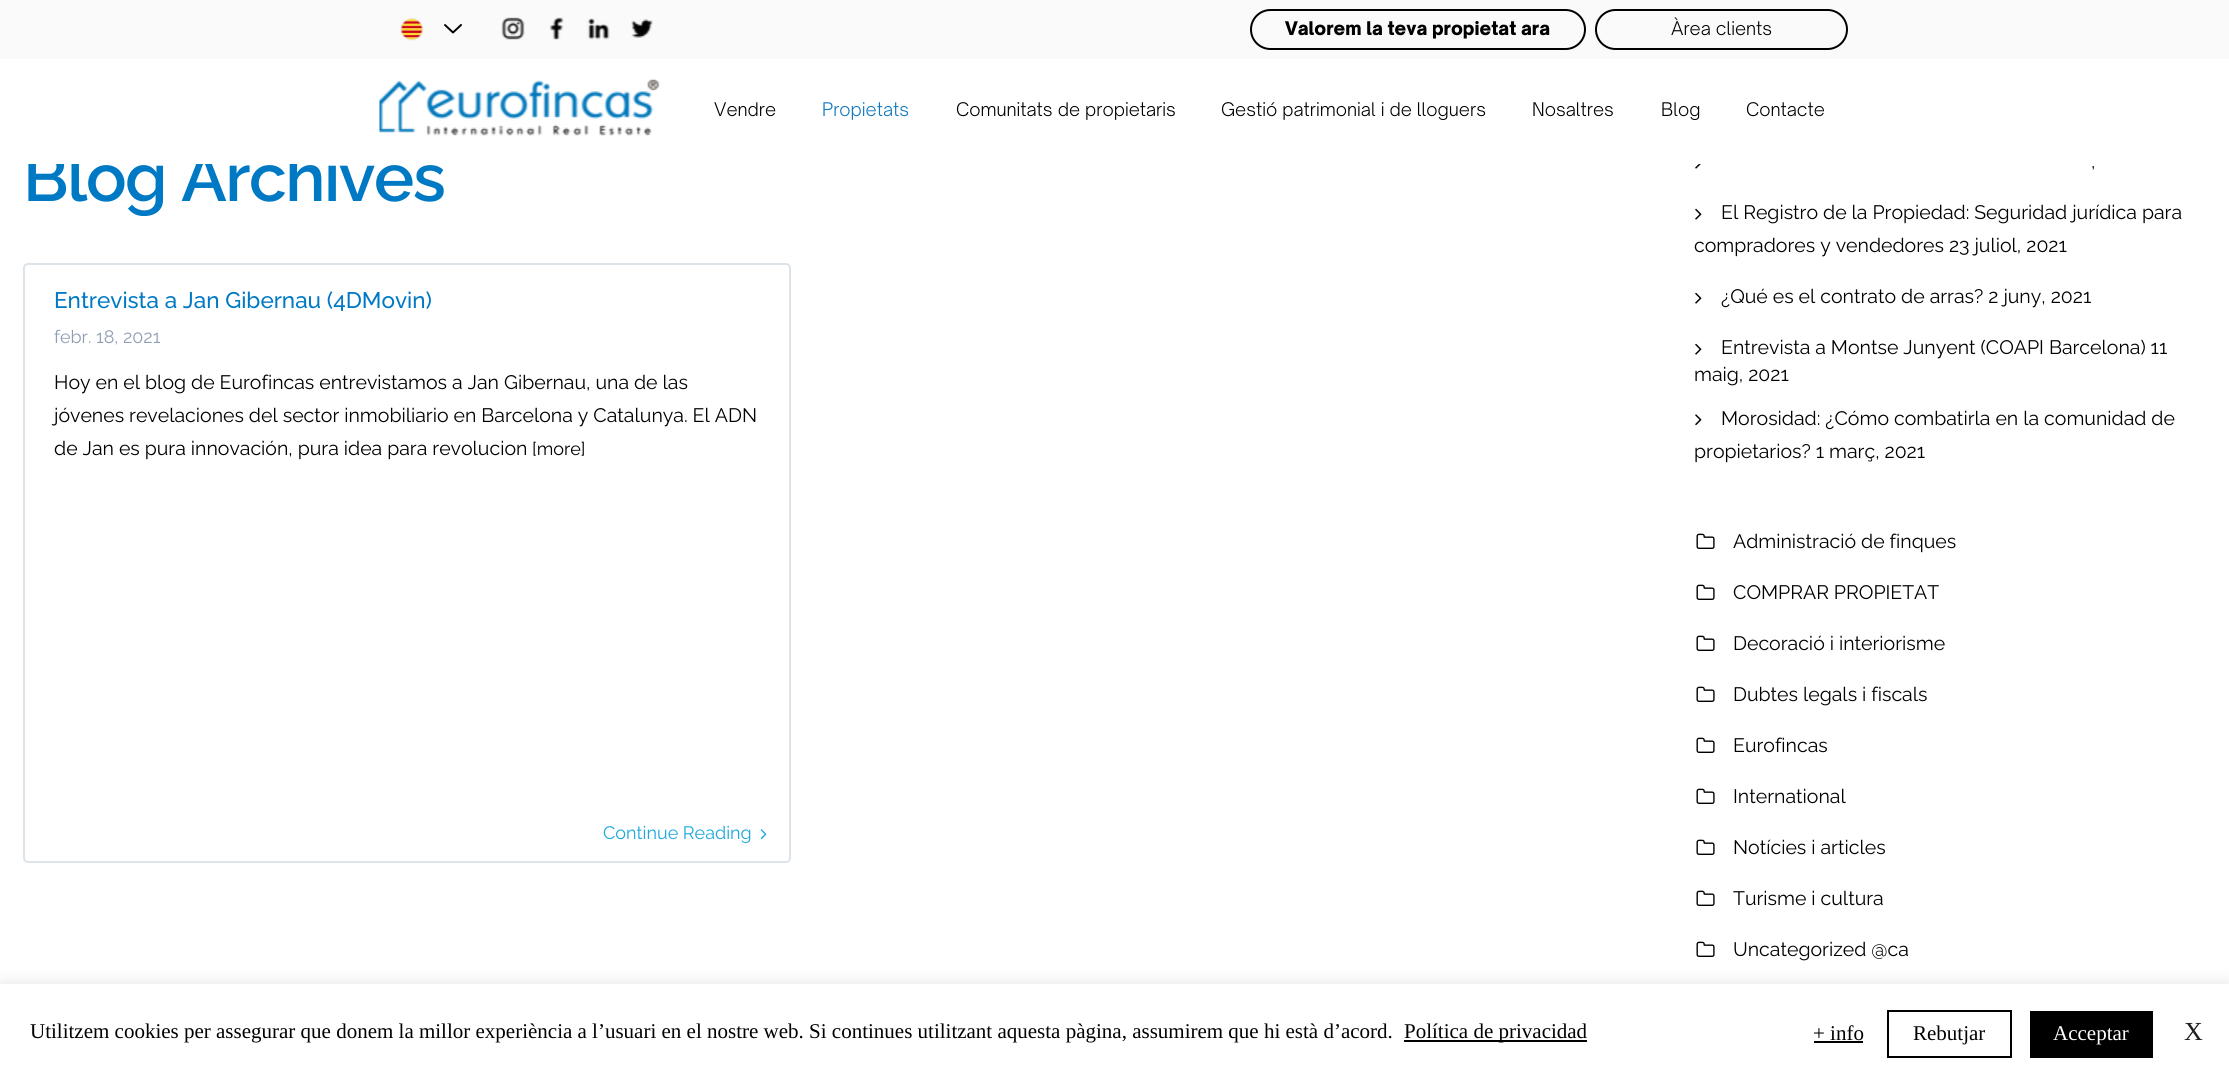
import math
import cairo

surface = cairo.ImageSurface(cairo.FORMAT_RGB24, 2229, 1081)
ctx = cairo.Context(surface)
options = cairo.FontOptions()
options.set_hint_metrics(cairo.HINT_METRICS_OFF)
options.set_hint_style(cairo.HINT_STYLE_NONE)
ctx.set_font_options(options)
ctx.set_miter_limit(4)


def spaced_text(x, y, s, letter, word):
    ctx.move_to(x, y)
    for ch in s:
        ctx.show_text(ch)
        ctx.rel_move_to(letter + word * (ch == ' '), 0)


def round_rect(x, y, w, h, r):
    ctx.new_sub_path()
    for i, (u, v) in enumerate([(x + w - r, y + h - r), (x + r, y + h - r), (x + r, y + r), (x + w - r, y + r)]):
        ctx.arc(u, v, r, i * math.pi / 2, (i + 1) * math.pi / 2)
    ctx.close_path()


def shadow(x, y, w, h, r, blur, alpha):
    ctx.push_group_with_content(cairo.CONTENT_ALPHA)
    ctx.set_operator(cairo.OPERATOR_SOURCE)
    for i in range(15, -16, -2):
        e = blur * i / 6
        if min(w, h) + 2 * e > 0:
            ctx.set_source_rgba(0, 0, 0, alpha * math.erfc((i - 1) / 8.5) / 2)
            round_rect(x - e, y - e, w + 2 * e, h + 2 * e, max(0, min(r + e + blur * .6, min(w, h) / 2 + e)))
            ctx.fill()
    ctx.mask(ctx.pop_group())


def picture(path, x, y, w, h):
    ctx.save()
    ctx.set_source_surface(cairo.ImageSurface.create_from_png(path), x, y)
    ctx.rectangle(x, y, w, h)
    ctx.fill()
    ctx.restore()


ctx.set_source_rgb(1, 1, 1)
ctx.paint()
ctx.set_source_rgb(0.98, 0.98, 0.98)
ctx.rectangle(0, 0, 2229, 59)
ctx.fill()
picture("img1.png", 400, 18, 24, 23)
picture("img2.png", 444, 24, 18, 10)
picture("img3.png", 501, 17, 24, 23)
picture("img4.png", 549, 17, 15, 23)
picture("img5.png", 587, 18, 23, 22)
picture("img6.png", 631, 19, 22, 19)
round_rect(1251, 10, 334, 39, 19.5)
ctx.set_source_rgb(0, 0, 0)
ctx.stroke()
ctx.select_font_face("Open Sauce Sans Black")
ctx.set_font_size(18)
ctx.move_to(1285, 35)
ctx.show_text("Valorem la teva propietat ara")
round_rect(1596, 10, 251, 39, 19.5)
ctx.stroke()
ctx.select_font_face("Open Sauce Sans Light")
ctx.move_to(1671, 35)
ctx.show_text("Àrea clients")
picture("img7.png", 379, 79, 281, 57)
ctx.move_to(714, 116)
ctx.show_text("Vendre")
ctx.set_source_rgb(0.051, 0.471, 0.737)
ctx.move_to(822, 116)
ctx.show_text("Propietats")
ctx.set_source_rgb(0, 0, 0)
ctx.move_to(956, 116)
ctx.show_text("Comunitats de propietaris")
ctx.move_to(1221, 116)
ctx.show_text("Gestió patrimonial i de lloguers")
ctx.move_to(1532, 116)
ctx.show_text("Nosaltres")
ctx.move_to(1661, 116)
ctx.show_text("Blog")
ctx.move_to(1746, 116)
ctx.show_text("Contacte")
ctx.select_font_face("Raleway SemiBold")
ctx.set_font_size(67.5)
ctx.set_source_rgb(0, 0.475, 0.773)
spaced_text(23, 201, "Blog Archives", -1.5, 0)
ctx.set_source_rgb(1, 1, 1)
ctx.rectangle(27, 151, 309, 13)
ctx.fill()
round_rect(24, 264, 766, 598, 4)
ctx.set_source_rgb(0.867, 0.894, 0.914)
ctx.stroke()
ctx.select_font_face("Raleway Medium")
ctx.set_font_size(22.5)
ctx.set_source_rgb(0, 0.475, 0.773)
ctx.move_to(54, 308)
ctx.show_text("Entrevista a Jan Gibernau (4DMovin)")
ctx.select_font_face("Raleway")
ctx.set_font_size(18)
ctx.set_source_rgb(0.561, 0.62, 0.714)
ctx.move_to(54, 343)
ctx.show_text("febr. 18, 2021")
ctx.set_font_size(19.5)
ctx.set_source_rgb(0, 0, 0)
ctx.move_to(54, 389)
ctx.show_text("Hoy en el blog de Eurofincas entrevistamos a Jan Gibernau, una de las")
ctx.move_to(54, 422)
ctx.show_text("jóvenes revelaciones del sector inmobiliario en Barcelona y Catalunya. El ADN")
ctx.move_to(54, 455)
ctx.show_text("de Jan es pura innovación, pura idea para revolucion")
ctx.set_font_size(18)
ctx.move_to(532, 455)
ctx.show_text("[more]")
ctx.set_source_rgb(0.11, 0.659, 0.867)
ctx.move_to(603, 839)
ctx.show_text("Continue Reading")
picture("img8.png", 760, 829, 7, 11)
picture("img9.png", 1695, 164, 6, 5)
ctx.set_font_size(19.5)
ctx.set_source_rgb(0, 0, 0)
ctx.move_to(2091, 168)
ctx.show_text(",")
picture("img10.png", 1695, 208, 7, 12)
ctx.move_to(1721, 219)
ctx.show_text("El Registro de la Propiedad: Seguridad jurídica para")
ctx.move_to(1694, 252)
ctx.show_text("compradores y vendedores 23 juliol, 2021")
picture("img10.png", 1695, 292, 7, 12)
ctx.move_to(1721, 303)
ctx.show_text("¿Qué es el contrato de arras? 2 juny, 2021")
picture("img10.png", 1695, 343, 7, 12)
ctx.move_to(1721, 354)
ctx.show_text("Entrevista a Montse Junyent (COAPI Barcelona) 11")
ctx.move_to(1694, 381)
ctx.show_text("maig, 2021")
picture("img11.png", 1695, 414, 7, 12)
ctx.move_to(1721, 425)
ctx.show_text("Morosidad: ¿Cómo combatirla en la comunidad de")
ctx.move_to(1694, 458)
ctx.show_text("propietarios? 1 març, 2021")
picture("img12.png", 1696, 533, 19, 16)
ctx.move_to(1733, 548)
ctx.show_text("Administració de finques")
picture("img12.png", 1696, 584, 19, 16)
ctx.move_to(1733, 599)
ctx.show_text("COMPRAR PROPIETAT")
picture("img12.png", 1696, 635, 19, 16)
ctx.move_to(1733, 650)
ctx.show_text("Decoració i interiorisme")
picture("img12.png", 1696, 686, 19, 16)
ctx.move_to(1733, 701)
ctx.show_text("Dubtes legals i fiscals")
picture("img12.png", 1696, 737, 19, 16)
ctx.move_to(1733, 752)
ctx.show_text("Eurofincas")
picture("img12.png", 1696, 788, 19, 16)
ctx.move_to(1733, 803)
ctx.show_text("International")
picture("img12.png", 1696, 839, 19, 16)
ctx.move_to(1733, 854)
ctx.show_text("Notícies i articles")
picture("img12.png", 1696, 890, 19, 16)
ctx.move_to(1733, 905)
ctx.show_text("Turisme i cultura")
picture("img12.png", 1696, 941, 19, 16)
ctx.move_to(1733, 956)
ctx.show_text("Uncategorized @ca")
ctx.set_source_rgb(0.675, 0.671, 0.671)
shadow(0, 983, 2229, 97, 0, 7.5, 0.3)
ctx.set_source_rgb(1, 1, 1)
ctx.rectangle(0, 984, 2229, 97)
ctx.fill()
ctx.select_font_face("Liberation Serif")
ctx.set_font_size(21)
ctx.set_source_rgb(0, 0, 0)
ctx.move_to(30, 1038)
ctx.show_text("Utilitzem cookies per assegurar que donem la millor experiència a l’usuari en el nostre web. Si continues utilitzant aquesta pàgina, assumirem que hi està d’acord.")
ctx.rectangle(1404, 1040, 183, 2)
ctx.fill()
ctx.move_to(1404, 1038)
ctx.show_text("Política de privacidad")
ctx.move_to(1813, 1040)
ctx.show_text("+ info")
ctx.rectangle(1814, 1041, 49, 2)
ctx.fill()
ctx.rectangle(1888, 1011, 123, 46)
ctx.stroke()
ctx.move_to(1913, 1040)
ctx.show_text("Rebutjar")
ctx.rectangle(2030, 1011, 123, 47)
ctx.fill()
ctx.set_source_rgb(1, 1, 1)
ctx.move_to(2053, 1040)
ctx.show_text("Acceptar")
ctx.set_font_size(26)
ctx.set_source_rgb(0.125, 0.125, 0.125)
ctx.move_to(2184, 1040)
ctx.show_text("X")
surface.write_to_png("page.png")
